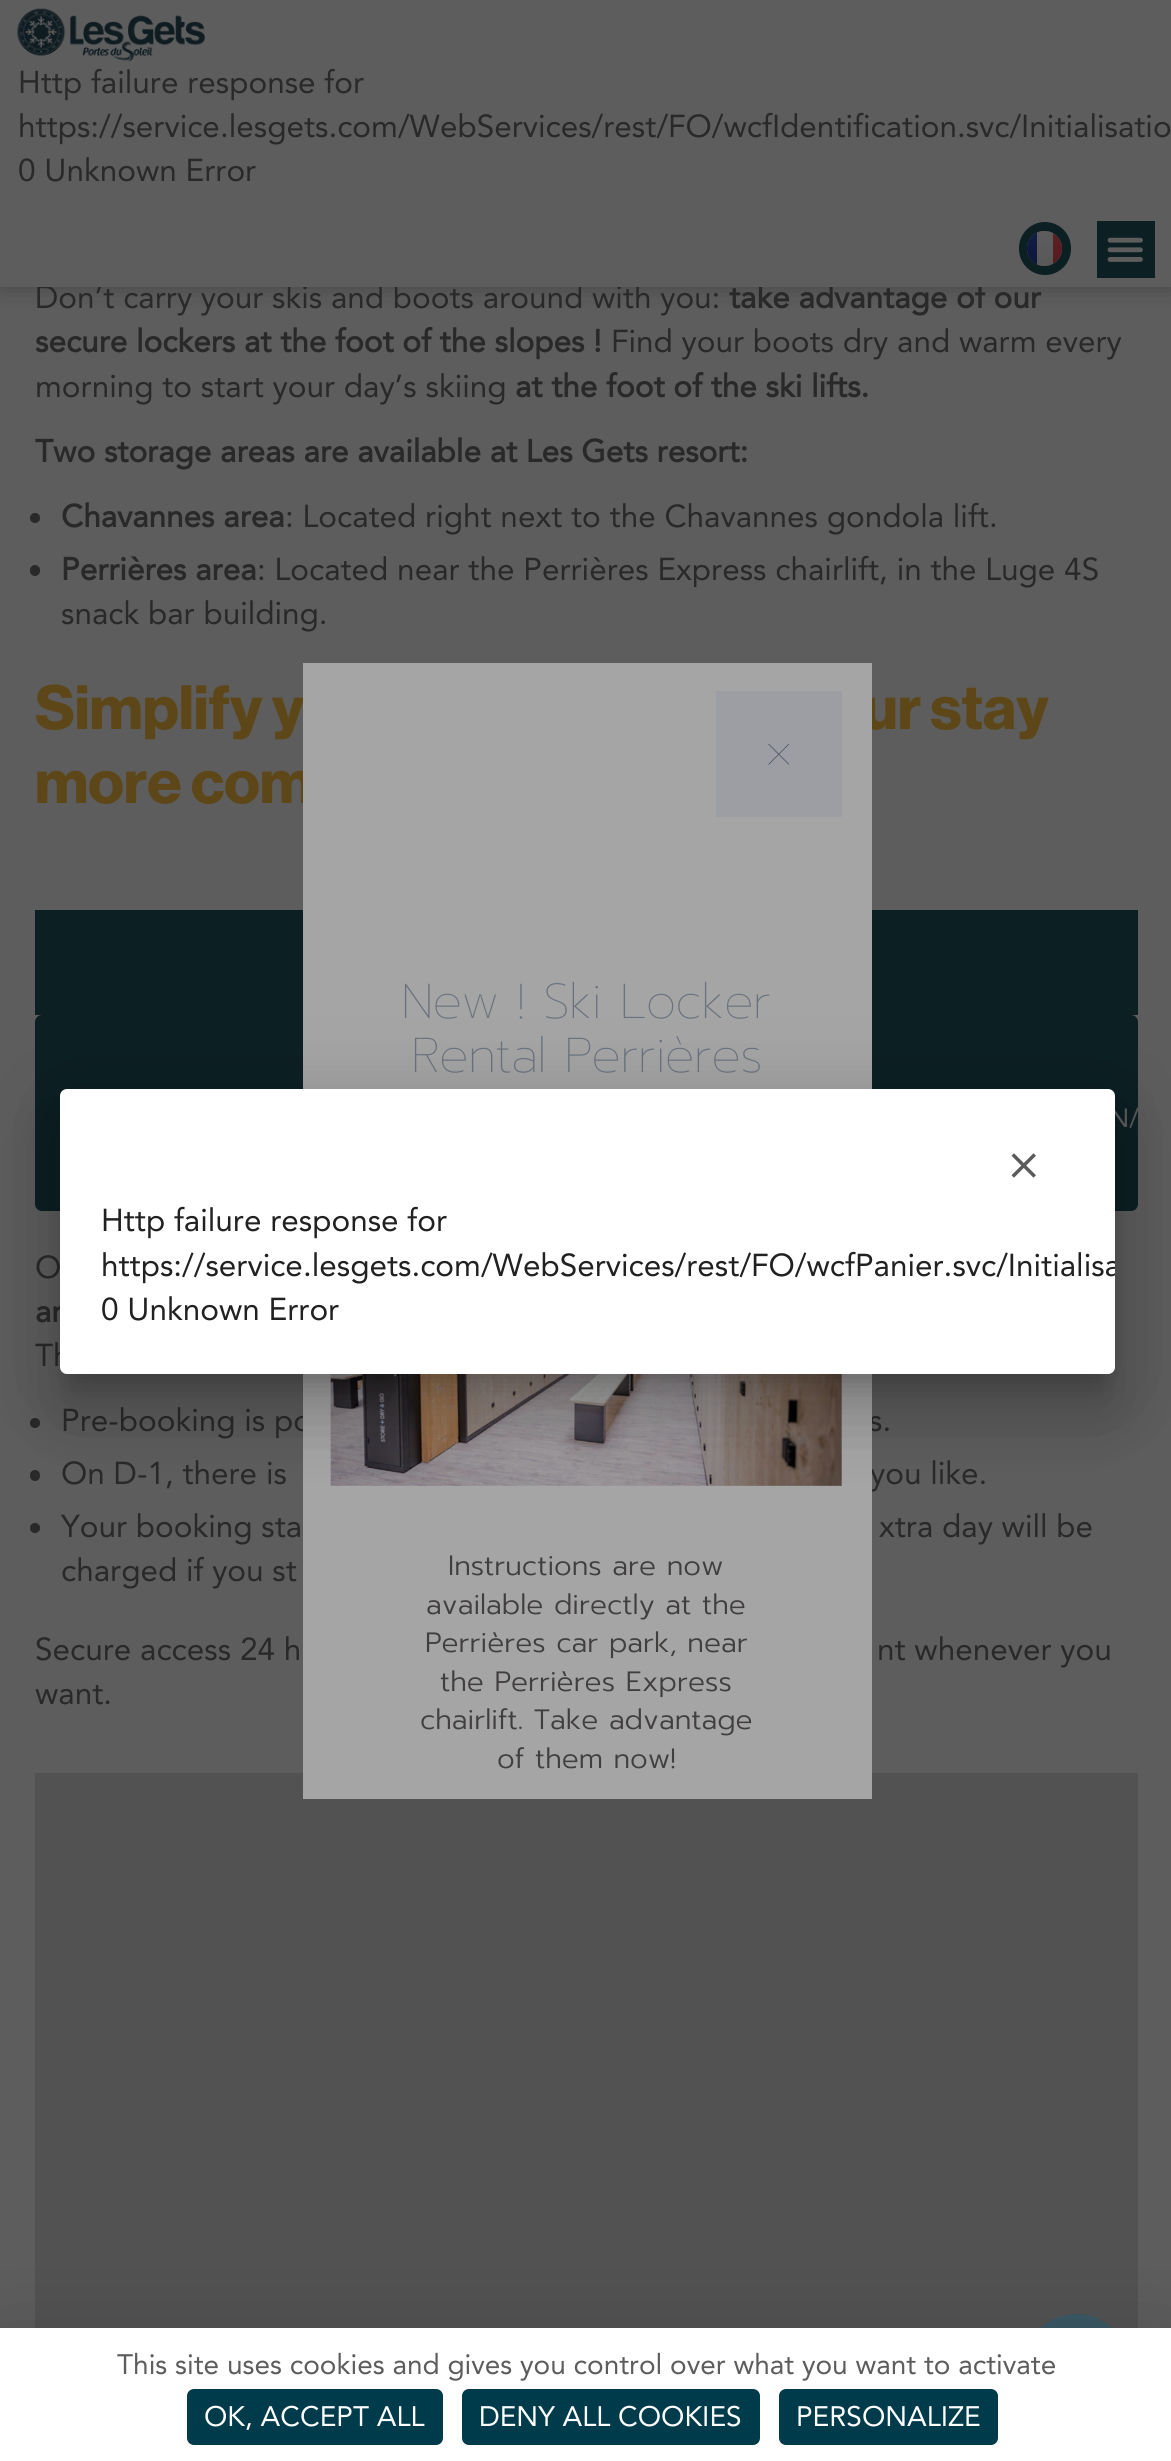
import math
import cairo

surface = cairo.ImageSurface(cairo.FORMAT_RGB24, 1171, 2461)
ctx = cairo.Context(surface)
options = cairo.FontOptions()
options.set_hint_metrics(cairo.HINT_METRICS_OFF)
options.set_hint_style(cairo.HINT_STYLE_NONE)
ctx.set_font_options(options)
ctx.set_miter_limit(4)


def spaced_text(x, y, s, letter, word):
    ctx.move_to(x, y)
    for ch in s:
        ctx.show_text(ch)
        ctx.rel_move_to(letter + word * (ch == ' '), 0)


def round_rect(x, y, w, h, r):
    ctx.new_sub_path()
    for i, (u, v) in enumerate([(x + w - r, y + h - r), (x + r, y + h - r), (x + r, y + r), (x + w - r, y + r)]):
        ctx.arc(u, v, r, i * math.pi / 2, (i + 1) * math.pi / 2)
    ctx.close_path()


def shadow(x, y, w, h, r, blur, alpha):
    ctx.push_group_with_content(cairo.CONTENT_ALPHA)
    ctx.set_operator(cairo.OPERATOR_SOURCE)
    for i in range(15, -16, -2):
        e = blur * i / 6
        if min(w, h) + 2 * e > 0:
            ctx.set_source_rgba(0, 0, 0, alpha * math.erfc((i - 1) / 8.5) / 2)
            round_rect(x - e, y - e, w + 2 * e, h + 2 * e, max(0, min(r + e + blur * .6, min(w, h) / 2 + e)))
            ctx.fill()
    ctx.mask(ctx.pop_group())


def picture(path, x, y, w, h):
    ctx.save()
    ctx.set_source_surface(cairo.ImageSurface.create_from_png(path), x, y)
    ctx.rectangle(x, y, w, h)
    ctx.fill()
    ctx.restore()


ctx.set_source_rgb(0.365, 0.365, 0.365)
ctx.paint()
ctx.set_source_rgb(0.047, 0.047, 0.047)
shadow(0, 0, 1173, 287, 0, 12, 0.3)
ctx.select_font_face("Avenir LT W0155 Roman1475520")
ctx.set_font_size(31.5)
ctx.set_source_rgb(0.161, 0.161, 0.161)
ctx.move_to(35, 308)
ctx.show_text("Don’t carry your skis and boots around with you:")
ctx.select_font_face("Avenir LT W0155 Roman1475520", cairo.FONT_SLANT_NORMAL, cairo.FONT_WEIGHT_BOLD)
ctx.move_to(729, 308)
ctx.show_text("take advantage of our")
ctx.set_source_rgb(0.365, 0.365, 0.365)
ctx.rectangle(0, 0, 1171, 287)
ctx.fill()
picture("img1.png", 17, 8, 188, 54)
ctx.select_font_face("Avenir LT W0155 Roman1475520")
ctx.set_source_rgb(0.161, 0.161, 0.161)
ctx.move_to(18, 93)
ctx.show_text("Http failure response for")
ctx.move_to(18, 137)
ctx.show_text("https://service.lesgets.com/WebServices/rest/FO/wcfIdentification.svc/Initialisatio")
ctx.move_to(18, 181)
ctx.show_text("0 Unknown Error")
ctx.set_source_rgb(0.047, 0.122, 0.137)
round_rect(1019, 222, 52, 53, 26)
ctx.fill()
gradient = cairo.LinearGradient(1045, 231, 1045, 266)
gradient.add_color_stop_rgba(0, 0.365, 0.365, 0.365, 1)
gradient.add_color_stop_rgba(1, 0.345, 0.345, 0.345, 1)
ctx.set_source(gradient)
ctx.arc(1044.5, 248.5, 17.5, 0, 2 * math.pi)
ctx.fill()
ctx.save()
round_rect(1027, 231, 35, 35, 17.5)
ctx.clip()
gradient = cairo.LinearGradient(1056, 231, 1056, 266)
gradient.add_color_stop_rgba(0, 0.353, 0.133, 0.149, 1)
gradient.add_color_stop_rgba(1, 0.345, 0.098, 0.118, 1)
ctx.set_source(gradient)
ctx.new_path()
ctx.move_to(1044, 231)
ctx.line_to(1044.5, 231)
ctx.curve_to(1054, 231, 1062, 239, 1062, 248.5)
ctx.curve_to(1062, 258, 1054, 266, 1044.5, 266)
ctx.line_to(1044, 266)
ctx.close_path()
ctx.fill()
gradient = cairo.LinearGradient(1028, 231, 1028, 266)
gradient.add_color_stop_rgba(0, 0.063, 0.114, 0.278, 1)
gradient.add_color_stop_rgba(1, 0.051, 0.086, 0.231, 1)
ctx.set_source(gradient)
ctx.rectangle(1027, 232, 10, 33)
ctx.fill()
gradient = cairo.LinearGradient(1045, 231, 1045, 266)
gradient.add_color_stop_rgba(0, 0.365, 0.365, 0.365, 1)
gradient.add_color_stop_rgba(1, 0.345, 0.345, 0.345, 1)
ctx.set_source(gradient)
ctx.rectangle(1037, 231, 16, 35)
ctx.fill()
ctx.restore()
ctx.set_source_rgb(0.047, 0.122, 0.137)
ctx.rectangle(1097, 221, 58, 57)
ctx.fill()
picture("img2.png", 1107, 237, 36, 25)
ctx.select_font_face("Avenir LT W0155 Roman1475520", cairo.FONT_SLANT_NORMAL, cairo.FONT_WEIGHT_BOLD)
ctx.set_source_rgb(0.161, 0.161, 0.161)
ctx.move_to(35, 352)
ctx.show_text("secure lockers at the foot of the slopes !")
ctx.select_font_face("Avenir LT W0155 Roman1475520")
ctx.move_to(611, 352)
ctx.show_text("Find your boots dry and warm every")
ctx.move_to(35, 397)
ctx.show_text("morning to start your day’s skiing")
ctx.select_font_face("Avenir LT W0155 Roman1475520", cairo.FONT_SLANT_NORMAL, cairo.FONT_WEIGHT_BOLD)
ctx.move_to(515, 397)
ctx.show_text("at the foot of the ski lifts.")
ctx.move_to(35, 462)
ctx.show_text("Two storage areas are available at Les Gets resort:")
ctx.new_path()
ctx.arc(35, 518, 5, 0, 2 * math.pi)
ctx.fill()
ctx.move_to(61, 527)
ctx.show_text("Chavannes area")
ctx.select_font_face("Avenir LT W0155 Roman1475520")
ctx.move_to(285, 527)
ctx.show_text(": Located right next to the Chavannes gondola lift.")
round_rect(30, 565, 10, 11, 5)
ctx.fill()
ctx.select_font_face("Avenir LT W0155 Roman1475520", cairo.FONT_SLANT_NORMAL, cairo.FONT_WEIGHT_BOLD)
ctx.move_to(61, 580)
ctx.show_text("Perrières area")
ctx.select_font_face("Avenir LT W0155 Roman1475520")
ctx.move_to(257, 580)
ctx.show_text(": Located near the Perrières Express chairlift, in the Luge 4S")
ctx.move_to(61, 624)
ctx.show_text("snack bar building.")
ctx.select_font_face("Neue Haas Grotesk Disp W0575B", cairo.FONT_SLANT_NORMAL, cairo.FONT_WEIGHT_BOLD)
ctx.set_font_size(61.25)
ctx.set_source_rgb(0.365, 0.278, 0.094)
ctx.move_to(35, 729)
ctx.show_text("Simplify y")
ctx.move_to(863, 729)
ctx.show_text("ur stay")
ctx.move_to(35, 803)
ctx.show_text("more com")
ctx.set_source_rgb(0.047, 0.122, 0.137)
ctx.rectangle(35, 910, 1103, 105)
ctx.fill()
round_rect(35, 1015, 1103, 196, 7)
ctx.fill()
ctx.select_font_face("Avenir LT W0155 Roman1475520")
ctx.set_font_size(26)
ctx.set_source_rgb(0.365, 0.365, 0.365)
ctx.move_to(1109, 1127)
ctx.show_text("N/")
ctx.set_font_size(31.5)
ctx.set_source_rgb(0.161, 0.161, 0.161)
ctx.move_to(35, 1278)
ctx.show_text("O")
ctx.select_font_face("Avenir LT W0155 Roman1475520", cairo.FONT_SLANT_NORMAL, cairo.FONT_WEIGHT_BOLD)
ctx.move_to(35, 1322)
ctx.show_text("ar")
ctx.select_font_face("Avenir LT W0155 Roman1475520")
ctx.move_to(35, 1366)
ctx.show_text("Th")
ctx.new_path()
ctx.arc(35, 1423, 5, 0, 2 * math.pi)
ctx.fill()
ctx.move_to(61, 1431)
ctx.show_text("Pre-booking is po")
ctx.move_to(869, 1431)
ctx.show_text("s.")
round_rect(30, 1470, 10, 11, 5)
ctx.fill()
ctx.move_to(61, 1484)
ctx.show_text("On D-1, there is")
ctx.move_to(870, 1484)
ctx.show_text("you like.")
ctx.new_path()
ctx.arc(35, 1528, 5, 0, 2 * math.pi)
ctx.fill()
ctx.move_to(61, 1537)
ctx.show_text("Your booking sta")
ctx.move_to(879, 1537)
ctx.show_text("xtra day will be")
ctx.move_to(61, 1581)
ctx.show_text("charged if you st")
ctx.move_to(35, 1660)
ctx.show_text("Secure access 24 h")
ctx.move_to(877, 1660)
ctx.show_text("nt whenever you")
ctx.move_to(35, 1704)
ctx.show_text("want.")
ctx.set_source_rgb(0.322, 0.322, 0.322)
ctx.rectangle(35, 1773, 1103, 555)
ctx.fill()
ctx.set_source_rgb(0.647, 0.647, 0.647)
ctx.rectangle(303, 663, 569, 1136)
ctx.fill()
ctx.set_source_rgb(0.612, 0.62, 0.639)
ctx.rectangle(716, 691, 126, 126)
ctx.fill()
picture("img3.png", 768, 744, 21, 21)
ctx.select_font_face("Prompt Thin")
ctx.set_font_size(49)
ctx.set_source_rgb(0.412, 0.447, 0.494)
spaced_text(401, 1018, "New ! Ski Locker", -0.9, 0)
spaced_text(411, 1072, "Rental Perrières", -0.9, 0)
picture("img4.png", 330, 1374, 512, 112)
ctx.select_font_face("Prompt Light")
ctx.set_font_size(28)
ctx.set_source_rgb(0.255, 0.243, 0.243)
ctx.move_to(448, 1575)
ctx.show_text("Instructions are now")
ctx.move_to(426, 1614)
ctx.show_text("available directly at the")
ctx.move_to(425, 1652)
ctx.show_text("Perrières car park, near")
ctx.move_to(440, 1691)
ctx.show_text("the Perrières Express")
ctx.move_to(420, 1729)
ctx.show_text("chairlift. Take advantage")
ctx.move_to(497, 1768)
ctx.show_text("of them now!")
ctx.set_source_rgb(0, 0, 0)
shadow(46, 1090, 1083, 314, 21, 40, 0.12)
shadow(54, 1125, 1066, 296, 12, 33, 0.14)
shadow(72, 1120, 1031, 261, 0, 13, 0.2)
ctx.set_source_rgb(1, 1, 1)
round_rect(60, 1089, 1055, 285, 7)
ctx.fill()
picture("img5.png", 1011, 1153, 25, 25)
ctx.select_font_face("Avenir LT W0155 Roman1475520")
ctx.set_font_size(31.5)
ctx.set_source_rgb(0.129, 0.129, 0.129)
ctx.move_to(101, 1231)
ctx.show_text("Http failure response for")
ctx.save()
ctx.rectangle(60, 1131, 1055, 201)
ctx.clip()
ctx.move_to(101, 1276)
ctx.show_text("https://service.lesgets.com/WebServices/rest/FO/wcfPanier.svc/Initialisa")
ctx.restore()
ctx.move_to(101, 1320)
ctx.show_text("0 Unknown Error")
ctx.set_source_rgb(0.227, 0.345, 0.396)
ctx.new_path()
ctx.arc(1076.5, 2366.5, 52.5, 0, 2 * math.pi)
ctx.fill()
ctx.set_source_rgb(0, 0, 0)
shadow(0, 2363, 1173, 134, 0, 52.5, 0.25)
ctx.set_source_rgb(1, 1, 1)
ctx.rectangle(0, 2328, 1171, 133)
ctx.fill()
ctx.set_font_size(28)
ctx.set_source_rgb(0.365, 0.365, 0.365)
ctx.move_to(117, 2374)
ctx.show_text("This site uses cookies and gives you control over what you want to activate")
ctx.set_source_rgb(0, 0.231, 0.294)
round_rect(187, 2389, 256, 56, 7)
ctx.fill()
ctx.set_source_rgb(1, 1, 1)
ctx.move_to(204, 2426)
ctx.show_text("OK, ACCEPT ALL")
ctx.set_source_rgb(0, 0.231, 0.294)
round_rect(462, 2389, 298, 56, 7)
ctx.fill()
ctx.set_source_rgb(1, 1, 1)
ctx.move_to(479, 2426)
ctx.show_text("DENY ALL COOKIES")
ctx.set_source_rgb(0, 0.231, 0.294)
round_rect(779, 2389, 219, 56, 7)
ctx.fill()
ctx.set_source_rgb(1, 1, 1)
ctx.move_to(796, 2426)
ctx.show_text("PERSONALIZE")
surface.write_to_png("page.png")
